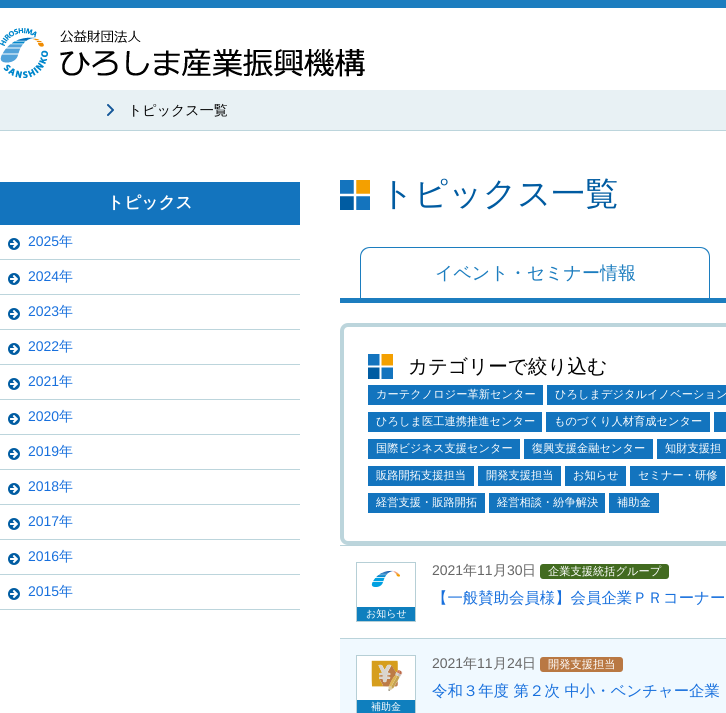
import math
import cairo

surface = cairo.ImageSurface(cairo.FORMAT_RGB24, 726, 713)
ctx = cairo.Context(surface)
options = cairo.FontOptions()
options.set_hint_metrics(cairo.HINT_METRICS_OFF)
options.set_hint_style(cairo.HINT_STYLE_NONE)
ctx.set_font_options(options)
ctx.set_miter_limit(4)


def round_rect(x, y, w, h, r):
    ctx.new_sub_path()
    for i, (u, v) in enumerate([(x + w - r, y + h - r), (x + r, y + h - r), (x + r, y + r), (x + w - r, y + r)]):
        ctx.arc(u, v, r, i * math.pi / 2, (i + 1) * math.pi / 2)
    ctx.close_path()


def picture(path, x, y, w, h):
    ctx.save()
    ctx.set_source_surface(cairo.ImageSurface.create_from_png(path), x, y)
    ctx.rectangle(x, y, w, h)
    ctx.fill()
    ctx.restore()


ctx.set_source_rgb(1, 1, 1)
ctx.paint()
ctx.set_source_rgb(0.11, 0.49, 0.749)
ctx.rectangle(0, 0, 726, 8)
ctx.fill()
picture("img1.png", 0, 28, 365, 50)
ctx.set_source_rgb(0.91, 0.945, 0.957)
ctx.rectangle(0, 90, 726, 40)
ctx.fill()
ctx.set_source_rgb(0.737, 0.835, 0.863)
ctx.rectangle(0, 130, 726, 1)
ctx.fill()
picture("img2.png", 107, 104, 7, 12)
ctx.select_font_face("WenQuanYi Zen Hei Medium")
ctx.set_font_size(14)
ctx.set_source_rgb(0, 0, 0)
ctx.move_to(128, 115)
ctx.show_text("トピックス一覧")
ctx.set_source_rgb(0.078, 0.455, 0.745)
ctx.rectangle(0, 182, 300, 43)
ctx.fill()
ctx.select_font_face("WenQuanYi Zen Hei", cairo.FONT_SLANT_NORMAL, cairo.FONT_WEIGHT_BOLD)
ctx.set_font_size(16.75)
ctx.set_source_rgb(1, 1, 1)
ctx.move_to(107, 208)
ctx.show_text("トピックス")
ctx.set_source_rgb(0.737, 0.835, 0.863)
ctx.rectangle(0, 259, 300, 1)
ctx.fill()
picture("img3.png", 8, 238, 12, 12)
ctx.select_font_face("Liberation Sans")
ctx.set_font_size(14)
ctx.set_source_rgb(0.094, 0.439, 0.867)
ctx.move_to(28, 246)
ctx.show_text("2025")
ctx.select_font_face("WenQuanYi Zen Hei Medium")
ctx.move_to(59, 246)
ctx.show_text("年")
ctx.set_source_rgb(0.737, 0.835, 0.863)
ctx.rectangle(0, 294, 300, 1)
ctx.fill()
picture("img3.png", 8, 273, 12, 12)
ctx.select_font_face("Liberation Sans")
ctx.set_source_rgb(0.094, 0.439, 0.867)
ctx.move_to(28, 281)
ctx.show_text("2024")
ctx.select_font_face("WenQuanYi Zen Hei Medium")
ctx.move_to(59, 281)
ctx.show_text("年")
ctx.set_source_rgb(0.737, 0.835, 0.863)
ctx.rectangle(0, 329, 300, 1)
ctx.fill()
picture("img3.png", 8, 308, 12, 12)
ctx.select_font_face("Liberation Sans")
ctx.set_source_rgb(0.094, 0.439, 0.867)
ctx.move_to(28, 316)
ctx.show_text("2023")
ctx.select_font_face("WenQuanYi Zen Hei Medium")
ctx.move_to(59, 316)
ctx.show_text("年")
ctx.set_source_rgb(0.737, 0.835, 0.863)
ctx.rectangle(0, 364, 300, 1)
ctx.fill()
picture("img3.png", 8, 343, 12, 12)
ctx.select_font_face("Liberation Sans")
ctx.set_source_rgb(0.094, 0.439, 0.867)
ctx.move_to(28, 351)
ctx.show_text("2022")
ctx.select_font_face("WenQuanYi Zen Hei Medium")
ctx.move_to(59, 351)
ctx.show_text("年")
ctx.set_source_rgb(0.737, 0.835, 0.863)
ctx.rectangle(0, 399, 300, 1)
ctx.fill()
picture("img3.png", 8, 378, 12, 12)
ctx.select_font_face("Liberation Sans")
ctx.set_source_rgb(0.094, 0.439, 0.867)
ctx.move_to(28, 386)
ctx.show_text("2021")
ctx.select_font_face("WenQuanYi Zen Hei Medium")
ctx.move_to(59, 386)
ctx.show_text("年")
ctx.set_source_rgb(0.737, 0.835, 0.863)
ctx.rectangle(0, 434, 300, 1)
ctx.fill()
picture("img3.png", 8, 413, 12, 12)
ctx.select_font_face("Liberation Sans")
ctx.set_source_rgb(0.094, 0.439, 0.867)
ctx.move_to(28, 421)
ctx.show_text("2020")
ctx.select_font_face("WenQuanYi Zen Hei Medium")
ctx.move_to(59, 421)
ctx.show_text("年")
ctx.set_source_rgb(0.737, 0.835, 0.863)
ctx.rectangle(0, 469, 300, 1)
ctx.fill()
picture("img3.png", 8, 448, 12, 12)
ctx.select_font_face("Liberation Sans")
ctx.set_source_rgb(0.094, 0.439, 0.867)
ctx.move_to(28, 456)
ctx.show_text("2019")
ctx.select_font_face("WenQuanYi Zen Hei Medium")
ctx.move_to(59, 456)
ctx.show_text("年")
ctx.set_source_rgb(0.737, 0.835, 0.863)
ctx.rectangle(0, 504, 300, 1)
ctx.fill()
picture("img3.png", 8, 483, 12, 12)
ctx.select_font_face("Liberation Sans")
ctx.set_source_rgb(0.094, 0.439, 0.867)
ctx.move_to(28, 491)
ctx.show_text("2018")
ctx.select_font_face("WenQuanYi Zen Hei Medium")
ctx.move_to(59, 491)
ctx.show_text("年")
ctx.set_source_rgb(0.737, 0.835, 0.863)
ctx.rectangle(0, 539, 300, 1)
ctx.fill()
picture("img3.png", 8, 518, 12, 12)
ctx.select_font_face("Liberation Sans")
ctx.set_source_rgb(0.094, 0.439, 0.867)
ctx.move_to(28, 526)
ctx.show_text("2017")
ctx.select_font_face("WenQuanYi Zen Hei Medium")
ctx.move_to(59, 526)
ctx.show_text("年")
ctx.set_source_rgb(0.737, 0.835, 0.863)
ctx.rectangle(0, 574, 300, 1)
ctx.fill()
picture("img3.png", 8, 553, 12, 12)
ctx.select_font_face("Liberation Sans")
ctx.set_source_rgb(0.094, 0.439, 0.867)
ctx.move_to(28, 561)
ctx.show_text("2016")
ctx.select_font_face("WenQuanYi Zen Hei Medium")
ctx.move_to(59, 561)
ctx.show_text("年")
ctx.set_source_rgb(0.737, 0.835, 0.863)
ctx.rectangle(0, 609, 300, 1)
ctx.fill()
picture("img3.png", 8, 588, 12, 12)
ctx.select_font_face("Liberation Sans")
ctx.set_source_rgb(0.094, 0.439, 0.867)
ctx.move_to(28, 596)
ctx.show_text("2015")
ctx.select_font_face("WenQuanYi Zen Hei Medium")
ctx.move_to(59, 596)
ctx.show_text("年")
picture("img4.png", 340, 180, 30, 30)
ctx.set_font_size(33.5)
ctx.set_source_rgb(0, 0.357, 0.631)
ctx.move_to(380, 205)
ctx.show_text("トピックス一覧")
ctx.set_source_rgb(0.11, 0.49, 0.749)
ctx.rectangle(340, 298, 386, 5)
ctx.fill()
ctx.set_fill_rule(cairo.FILL_RULE_EVEN_ODD)
ctx.new_path()
ctx.move_to(370, 247)
ctx.line_to(700, 247)
ctx.curve_to(706, 247, 710, 251, 710, 257)
ctx.line_to(710, 298)
ctx.line_to(360, 298)
ctx.line_to(360, 257)
ctx.curve_to(360, 251, 364, 247, 370, 247)
ctx.close_path()
ctx.move_to(370, 248)
ctx.line_to(700, 248)
ctx.curve_to(705, 248, 709, 252, 709, 257)
ctx.line_to(709, 298)
ctx.line_to(361, 298)
ctx.line_to(361, 257)
ctx.curve_to(361, 252, 365, 248, 370, 248)
ctx.close_path()
ctx.fill()
ctx.set_font_size(18)
ctx.move_to(435, 279)
ctx.show_text("イベント・セミナー情報")
round_rect(342, 325, 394, 218, 6)
ctx.set_source_rgb(0.737, 0.835, 0.863)
ctx.set_line_width(4)
ctx.stroke()
picture("img5.png", 368, 354, 25, 25)
ctx.set_font_size(19.6)
ctx.set_source_rgb(0, 0, 0)
ctx.move_to(408, 373)
ctx.show_text("カテゴリーで絞り込む")
ctx.set_source_rgb(0.078, 0.455, 0.745)
ctx.rectangle(368, 385, 175, 20)
ctx.fill()
ctx.set_font_size(11.25)
ctx.set_source_rgb(1, 1, 1)
ctx.move_to(376, 398)
ctx.show_text("カーテクノロジー革新センター")
ctx.set_source_rgb(0.078, 0.455, 0.745)
ctx.rectangle(547, 385, 179, 20)
ctx.fill()
ctx.set_source_rgb(1, 1, 1)
ctx.move_to(555, 398)
ctx.show_text("ひろしまデジタルイノベーション")
ctx.set_source_rgb(0.078, 0.455, 0.745)
ctx.rectangle(368, 412, 174, 20)
ctx.fill()
ctx.set_source_rgb(1, 1, 1)
ctx.move_to(376, 425)
ctx.show_text("ひろしま医工連携推進センター")
ctx.set_source_rgb(0.078, 0.455, 0.745)
ctx.rectangle(546, 412, 164, 20)
ctx.fill()
ctx.set_source_rgb(1, 1, 1)
ctx.move_to(554, 425)
ctx.show_text("ものづくり人材育成センター")
ctx.set_source_rgb(0.078, 0.455, 0.745)
ctx.rectangle(714, 412, 12, 20)
ctx.fill()
ctx.rectangle(368, 439, 152, 20)
ctx.fill()
ctx.set_source_rgb(1, 1, 1)
ctx.move_to(376, 452)
ctx.show_text("国際ビジネス支援センター")
ctx.set_source_rgb(0.078, 0.455, 0.745)
ctx.rectangle(524, 439, 129, 20)
ctx.fill()
ctx.set_source_rgb(1, 1, 1)
ctx.move_to(532, 452)
ctx.show_text("復興支援金融センター")
ctx.set_source_rgb(0.078, 0.455, 0.745)
ctx.rectangle(657, 439, 69, 20)
ctx.fill()
ctx.set_source_rgb(1, 1, 1)
ctx.move_to(665, 452)
ctx.show_text("知財支援担")
ctx.set_source_rgb(0.078, 0.455, 0.745)
ctx.rectangle(368, 466, 106, 20)
ctx.fill()
ctx.set_source_rgb(1, 1, 1)
ctx.move_to(376, 479)
ctx.show_text("販路開拓支援担当")
ctx.set_source_rgb(0.078, 0.455, 0.745)
ctx.rectangle(478, 466, 83, 20)
ctx.fill()
ctx.set_source_rgb(1, 1, 1)
ctx.move_to(486, 479)
ctx.show_text("開発支援担当")
ctx.set_source_rgb(0.078, 0.455, 0.745)
ctx.rectangle(565, 466, 61, 20)
ctx.fill()
ctx.set_source_rgb(1, 1, 1)
ctx.move_to(573, 479)
ctx.show_text("お知らせ")
ctx.set_source_rgb(0.078, 0.455, 0.745)
ctx.rectangle(630, 466, 95, 20)
ctx.fill()
ctx.set_source_rgb(1, 1, 1)
ctx.move_to(638, 479)
ctx.show_text("セミナー・研修")
ctx.set_source_rgb(0.078, 0.455, 0.745)
ctx.rectangle(368, 493, 117, 20)
ctx.fill()
ctx.set_source_rgb(1, 1, 1)
ctx.move_to(376, 506)
ctx.show_text("経営支援・販路開拓")
ctx.set_source_rgb(0.078, 0.455, 0.745)
ctx.rectangle(489, 493, 116, 20)
ctx.fill()
ctx.set_source_rgb(1, 1, 1)
ctx.move_to(497, 506)
ctx.show_text("経営相談・紛争解決")
ctx.set_source_rgb(0.078, 0.455, 0.745)
ctx.rectangle(609, 493, 50, 20)
ctx.fill()
ctx.set_source_rgb(1, 1, 1)
ctx.move_to(617, 506)
ctx.show_text("補助金")
ctx.set_source_rgb(0.729, 0.827, 0.855)
ctx.rectangle(340, 545, 386, 1)
ctx.fill()
ctx.rectangle(340, 638, 386, 1)
ctx.fill()
ctx.select_font_face("Liberation Sans")
ctx.set_font_size(14)
ctx.set_source_rgb(0.4, 0.4, 0.4)
ctx.move_to(432, 575)
ctx.show_text("2021")
ctx.select_font_face("WenQuanYi Zen Hei Medium")
ctx.move_to(463, 575)
ctx.show_text("年")
ctx.select_font_face("Liberation Sans")
ctx.move_to(477, 575)
ctx.show_text("11")
ctx.select_font_face("WenQuanYi Zen Hei Medium")
ctx.move_to(493, 575)
ctx.show_text("月")
ctx.select_font_face("Liberation Sans")
ctx.move_to(507, 575)
ctx.show_text("30")
ctx.select_font_face("WenQuanYi Zen Hei Medium")
ctx.move_to(522, 575)
ctx.show_text("日")
ctx.set_source_rgb(0.259, 0.42, 0.125)
round_rect(540, 564, 129, 15, 3)
ctx.fill()
ctx.set_font_size(11.25)
ctx.set_source_rgb(1, 1, 1)
ctx.move_to(548, 575)
ctx.show_text("企業支援統括グループ")
ctx.set_font_size(15.4)
ctx.set_source_rgb(0.094, 0.439, 0.867)
ctx.move_to(432, 603)
ctx.show_text("【一般賛助会員様】会員企業ＰＲコーナー")
ctx.rectangle(356.5, 562.5, 59, 59)
ctx.set_source_rgb(0.714, 0.812, 0.839)
ctx.set_line_width(1)
ctx.stroke()
picture("img6.png", 371, 570, 29, 17)
ctx.set_source_rgb(0.059, 0.498, 0.745)
ctx.rectangle(357, 607, 58, 14)
ctx.fill()
ctx.set_font_size(10)
ctx.set_source_rgb(1, 1, 1)
ctx.move_to(366, 617)
ctx.show_text("お知らせ")
ctx.set_source_rgb(0.941, 0.973, 1)
ctx.rectangle(340, 639, 386, 74)
ctx.fill()
ctx.select_font_face("Liberation Sans")
ctx.set_font_size(14)
ctx.set_source_rgb(0.4, 0.4, 0.4)
ctx.move_to(432, 668)
ctx.show_text("2021")
ctx.select_font_face("WenQuanYi Zen Hei Medium")
ctx.move_to(463, 668)
ctx.show_text("年")
ctx.select_font_face("Liberation Sans")
ctx.move_to(477, 668)
ctx.show_text("11")
ctx.select_font_face("WenQuanYi Zen Hei Medium")
ctx.move_to(493, 668)
ctx.show_text("月")
ctx.select_font_face("Liberation Sans")
ctx.move_to(507, 668)
ctx.show_text("24")
ctx.select_font_face("WenQuanYi Zen Hei Medium")
ctx.move_to(522, 668)
ctx.show_text("日")
ctx.set_source_rgb(0.725, 0.471, 0.263)
round_rect(540, 657, 83, 15, 3)
ctx.fill()
ctx.set_font_size(11.25)
ctx.set_source_rgb(1, 1, 1)
ctx.move_to(548, 668)
ctx.show_text("開発支援担当")
ctx.set_font_size(15.4)
ctx.set_source_rgb(0.094, 0.439, 0.867)
ctx.move_to(432, 696)
ctx.show_text("令和３年度 第２次 中小・ベンチャー企業")
ctx.set_source_rgb(1, 1, 1)
ctx.rectangle(357, 656, 58, 44)
ctx.fill()
ctx.rectangle(356.5, 655.5, 59, 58)
ctx.set_source_rgb(0.714, 0.812, 0.839)
ctx.stroke()
picture("img7.png", 371, 660, 32, 31)
ctx.set_source_rgb(0.059, 0.498, 0.745)
ctx.rectangle(357, 700, 58, 13)
ctx.fill()
ctx.set_font_size(10)
ctx.set_source_rgb(1, 1, 1)
ctx.move_to(371, 710)
ctx.show_text("補助金")
surface.write_to_png("page.png")
